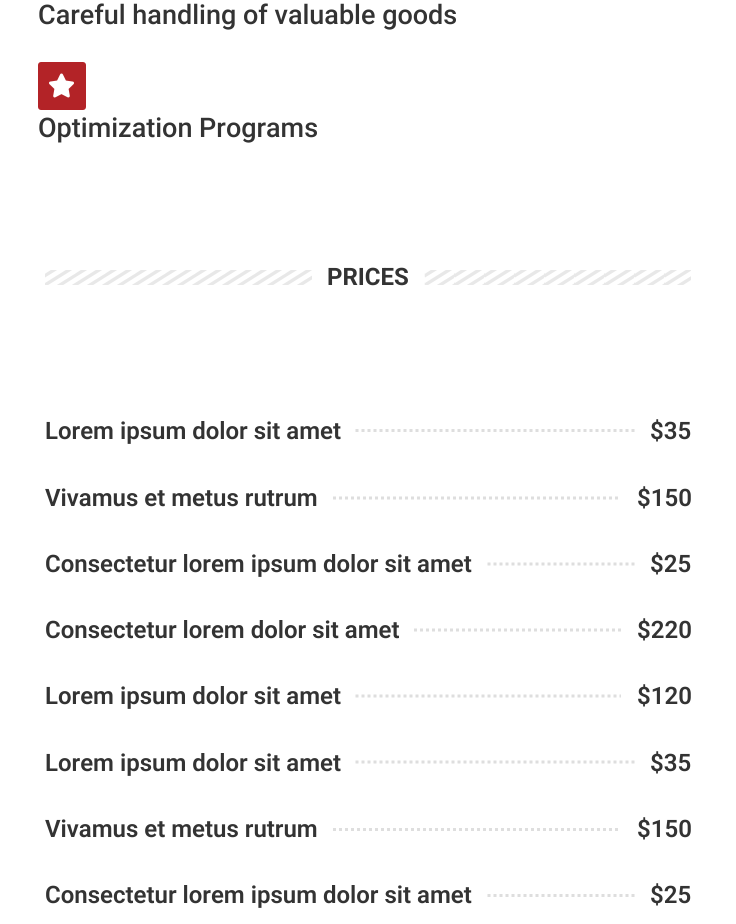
import math
import cairo

surface = cairo.ImageSurface(cairo.FORMAT_RGB24, 736, 924)
ctx = cairo.Context(surface)
options = cairo.FontOptions()
options.set_hint_metrics(cairo.HINT_METRICS_OFF)
options.set_hint_style(cairo.HINT_STYLE_NONE)
ctx.set_font_options(options)
ctx.set_miter_limit(4)


def round_rect(x, y, w, h, r):
    ctx.new_sub_path()
    for i, (u, v) in enumerate([(x + w - r, y + h - r), (x + r, y + h - r), (x + r, y + r), (x + w - r, y + r)]):
        ctx.arc(u, v, r, i * math.pi / 2, (i + 1) * math.pi / 2)
    ctx.close_path()


def picture(path, x, y, w, h):
    ctx.save()
    ctx.set_source_surface(cairo.ImageSurface.create_from_png(path), x, y)
    ctx.rectangle(x, y, w, h)
    ctx.fill()
    ctx.restore()


ctx.set_source_rgb(1, 1, 1)
ctx.paint()
ctx.select_font_face("Roboto Medium")
ctx.set_font_size(27)
ctx.set_source_rgb(0.2, 0.2, 0.2)
ctx.move_to(38, 24)
ctx.show_text("Careful handling of valuable goods")
ctx.set_source_rgb(0.702, 0.137, 0.153)
round_rect(38, 62, 48, 48, 3)
ctx.fill()
picture("img1.png", 49, 73, 25, 25)
ctx.set_source_rgb(0.2, 0.2, 0.2)
ctx.move_to(38, 137)
ctx.show_text("Optimization Programs")
picture("img2.png", 45, 270, 267, 15)
ctx.select_font_face("Roboto", cairo.FONT_SLANT_NORMAL, cairo.FONT_WEIGHT_BOLD)
ctx.set_font_size(24)
ctx.move_to(327, 285)
ctx.show_text("PRICES")
picture("img3.png", 424, 270, 267, 15)
ctx.select_font_face("Roboto SemiBold")
ctx.move_to(45, 439)
ctx.show_text("Lorem ipsum dolor sit amet")
ctx.new_path()
ctx.move_to(355.5, 430.5)
ctx.line_to(636, 430.5)
ctx.set_source_rgb(0.871, 0.871, 0.871)
ctx.set_line_width(3)
ctx.set_dash([3, 3])
ctx.stroke()
ctx.set_source_rgb(0.2, 0.2, 0.2)
ctx.move_to(650, 439)
ctx.show_text("$35")
ctx.move_to(45, 506)
ctx.show_text("Vivamus et metus rutrum")
ctx.new_path()
ctx.move_to(333, 498)
ctx.line_to(621, 498)
ctx.set_source_rgb(0.871, 0.871, 0.871)
ctx.stroke()
ctx.set_source_rgb(0.2, 0.2, 0.2)
ctx.move_to(637, 506)
ctx.show_text("$150")
ctx.move_to(45, 572)
ctx.show_text("Consectetur lorem ipsum dolor sit amet")
ctx.new_path()
ctx.move_to(487.5, 564)
ctx.line_to(636, 564)
ctx.set_source_rgb(0.871, 0.871, 0.871)
ctx.stroke()
ctx.set_source_rgb(0.2, 0.2, 0.2)
ctx.move_to(650, 572)
ctx.show_text("$25")
ctx.move_to(45, 638)
ctx.show_text("Consectetur lorem dolor sit amet")
ctx.new_path()
ctx.move_to(414, 630)
ctx.line_to(621, 630)
ctx.set_source_rgb(0.871, 0.871, 0.871)
ctx.stroke()
ctx.set_source_rgb(0.2, 0.2, 0.2)
ctx.move_to(637, 638)
ctx.show_text("$220")
ctx.move_to(45, 704)
ctx.show_text("Lorem ipsum dolor sit amet")
ctx.new_path()
ctx.move_to(355.5, 696)
ctx.line_to(621, 696)
ctx.set_source_rgb(0.871, 0.871, 0.871)
ctx.stroke()
ctx.set_source_rgb(0.2, 0.2, 0.2)
ctx.move_to(637, 704)
ctx.show_text("$120")
ctx.move_to(45, 771)
ctx.show_text("Lorem ipsum dolor sit amet")
ctx.new_path()
ctx.move_to(355.5, 762)
ctx.line_to(636, 762)
ctx.set_source_rgb(0.871, 0.871, 0.871)
ctx.stroke()
ctx.set_source_rgb(0.2, 0.2, 0.2)
ctx.move_to(650, 771)
ctx.show_text("$35")
ctx.move_to(45, 837)
ctx.show_text("Vivamus et metus rutrum")
ctx.new_path()
ctx.move_to(333, 829.5)
ctx.line_to(621, 829.5)
ctx.set_source_rgb(0.871, 0.871, 0.871)
ctx.stroke()
ctx.set_source_rgb(0.2, 0.2, 0.2)
ctx.move_to(637, 837)
ctx.show_text("$150")
ctx.move_to(45, 903)
ctx.show_text("Consectetur lorem ipsum dolor sit amet")
ctx.new_path()
ctx.move_to(487.5, 895.5)
ctx.line_to(636, 895.5)
ctx.set_source_rgb(0.871, 0.871, 0.871)
ctx.stroke()
ctx.set_source_rgb(0.2, 0.2, 0.2)
ctx.move_to(650, 903)
ctx.show_text("$25")
surface.write_to_png("page.png")
